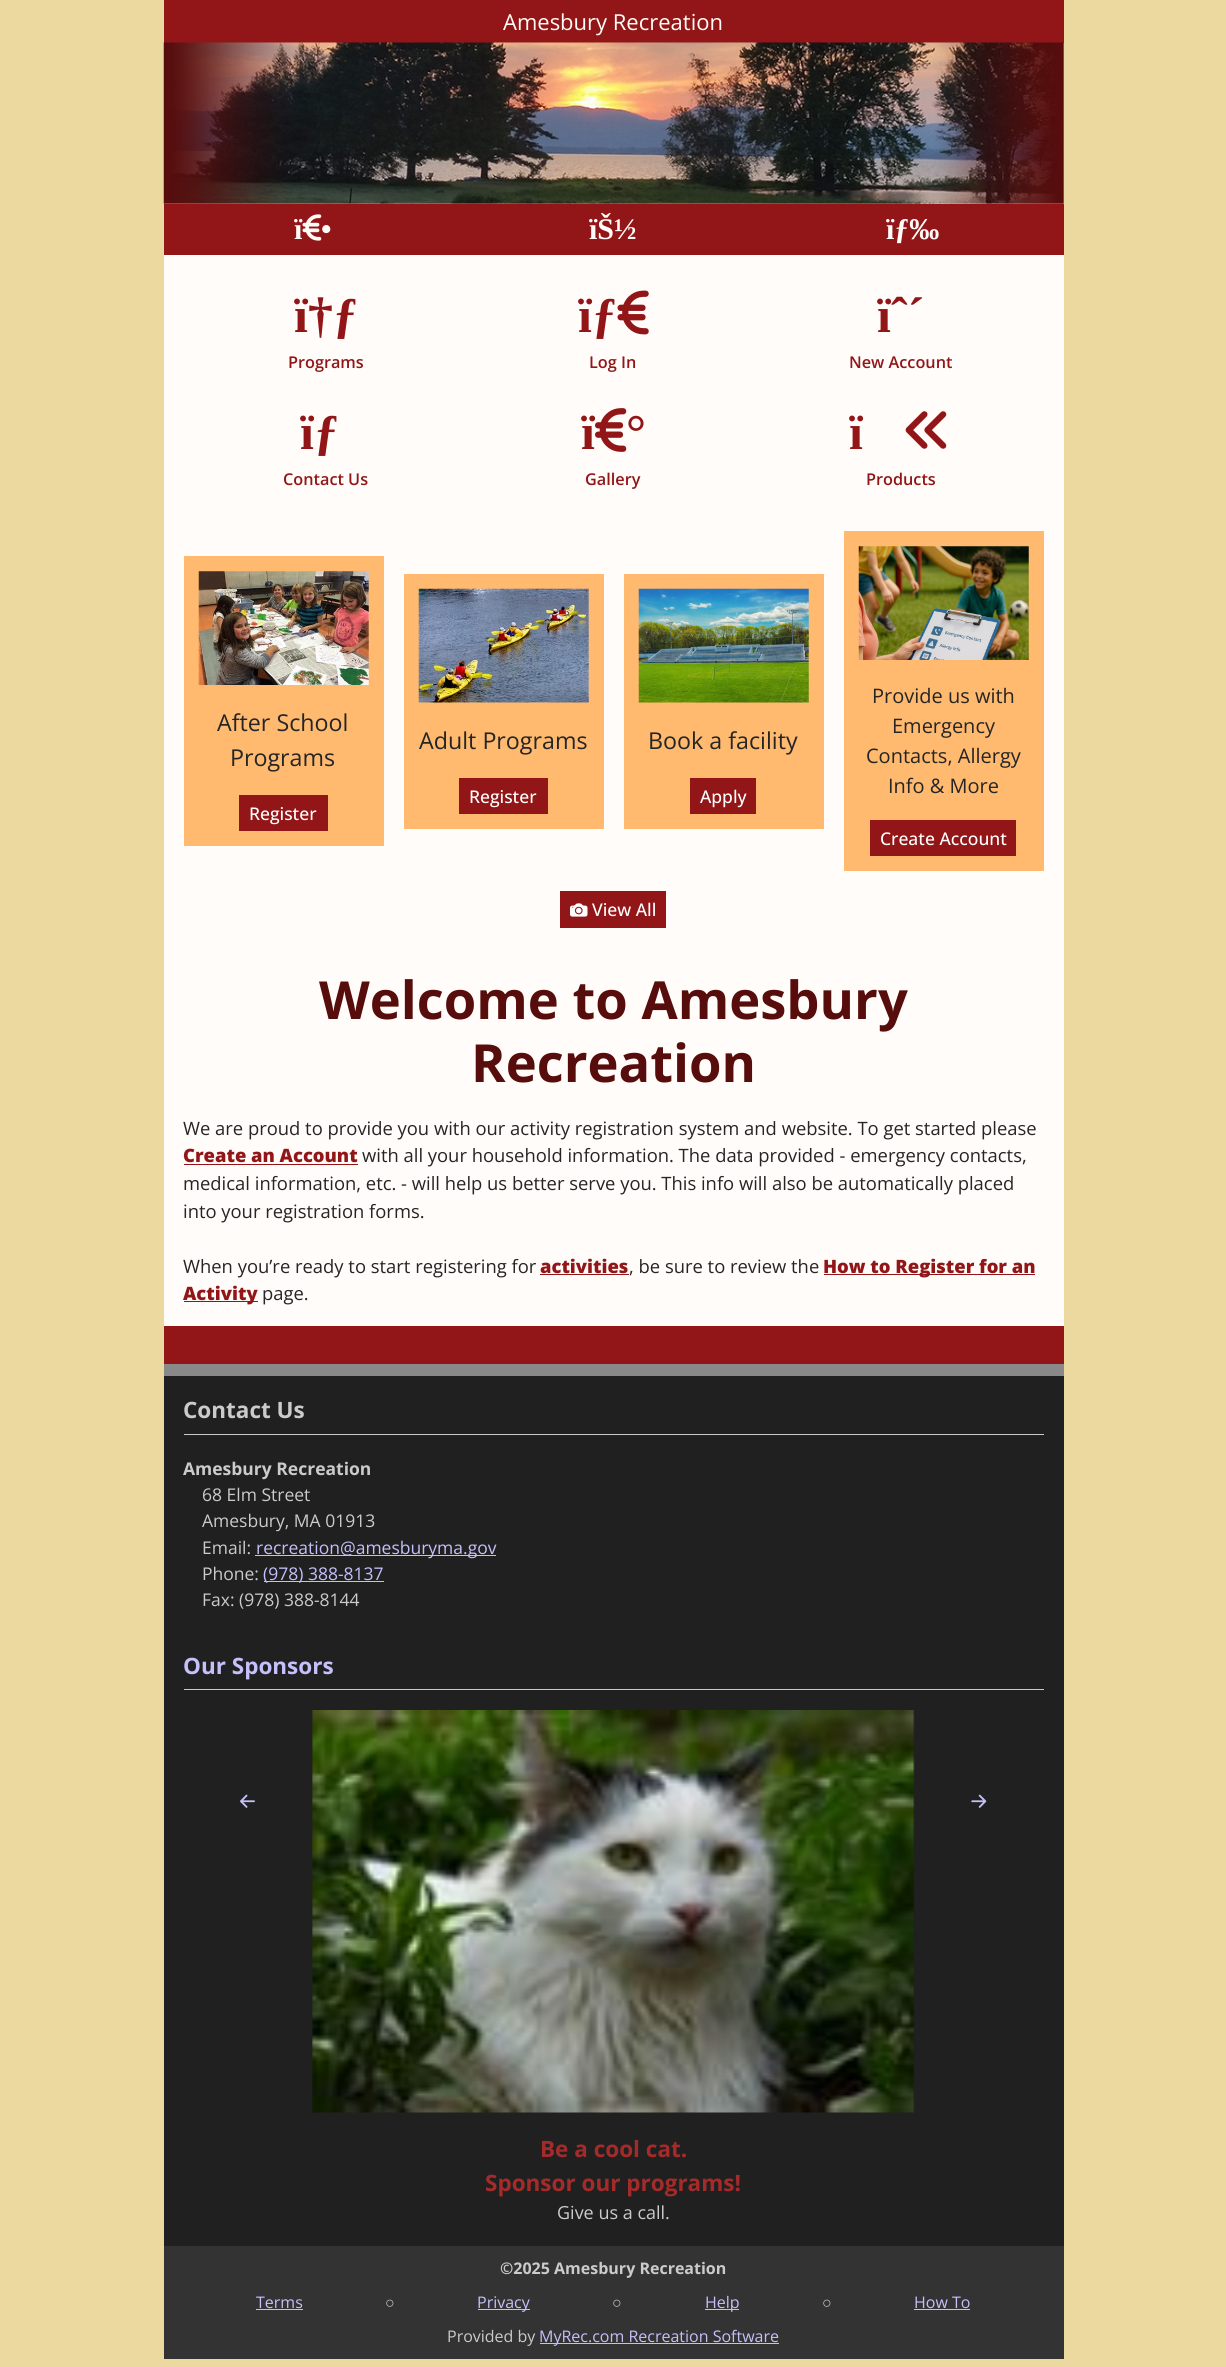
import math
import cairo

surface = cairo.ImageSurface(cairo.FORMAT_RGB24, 1226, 2367)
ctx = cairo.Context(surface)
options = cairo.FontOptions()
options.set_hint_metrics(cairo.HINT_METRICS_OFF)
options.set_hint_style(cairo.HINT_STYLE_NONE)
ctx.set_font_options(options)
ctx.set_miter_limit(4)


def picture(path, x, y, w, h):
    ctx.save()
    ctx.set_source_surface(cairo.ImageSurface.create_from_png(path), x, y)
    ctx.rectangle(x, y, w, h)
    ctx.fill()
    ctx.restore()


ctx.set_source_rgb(0.925, 0.851, 0.624)
ctx.paint()
ctx.set_source_rgb(1, 0.988, 0.973)
ctx.rectangle(164, 43, 900, 1283)
ctx.fill()
ctx.set_source_rgb(0.573, 0.086, 0.094)
ctx.rectangle(164, 0, 900, 43)
ctx.fill()
ctx.select_font_face("Open Sans")
ctx.set_font_size(22)
ctx.set_source_rgb(1, 0.988, 0.973)
ctx.move_to(503, 30)
ctx.show_text("Amesbury Recreation")
picture("img1.png", 163, 42, 901, 162)
ctx.set_source_rgb(0.573, 0.086, 0.094)
ctx.rectangle(164, 204, 900, 51)
ctx.fill()
picture("img2.png", 302, 214, 20, 27)
ctx.select_font_face("Liberation Serif", cairo.FONT_SLANT_NORMAL, cairo.FONT_WEIGHT_BOLD)
ctx.set_font_size(30)
ctx.set_source_rgb(1, 0.988, 0.973)
ctx.move_to(294, 239)
ctx.show_text("ï")
ctx.move_to(321, 239)
ctx.show_text("•")
ctx.move_to(589, 239)
ctx.show_text("ïŠ½")
ctx.move_to(886, 239)
ctx.show_text("ïƒ‰")
ctx.set_font_size(50)
ctx.set_source_rgb(0.573, 0.086, 0.094)
ctx.move_to(294, 332)
ctx.show_text("ï†ƒ")
ctx.select_font_face("Open Sans SemiBold")
ctx.set_font_size(16.25)
ctx.move_to(288, 368)
ctx.show_text("Programs")
ctx.select_font_face("Liberation Serif", cairo.FONT_SLANT_NORMAL, cairo.FONT_WEIGHT_BOLD)
ctx.set_font_size(50)
ctx.move_to(578, 332)
ctx.show_text("ïƒ")
picture("img3.png", 617, 290, 32, 45)
ctx.select_font_face("Open Sans SemiBold")
ctx.set_font_size(16.25)
ctx.move_to(589, 368)
ctx.show_text("Log In")
ctx.select_font_face("Liberation Serif", cairo.FONT_SLANT_NORMAL, cairo.FONT_WEIGHT_BOLD)
ctx.set_font_size(50)
ctx.move_to(877, 332)
ctx.show_text("ïˆ´")
ctx.select_font_face("Open Sans SemiBold")
ctx.set_font_size(16.25)
ctx.move_to(849, 368)
ctx.show_text("New Account")
ctx.select_font_face("Liberation Serif", cairo.FONT_SLANT_NORMAL, cairo.FONT_WEIGHT_BOLD)
ctx.set_font_size(50)
ctx.move_to(300, 449)
ctx.show_text("ïƒ")
ctx.select_font_face("Open Sans SemiBold")
ctx.set_font_size(16.25)
ctx.move_to(283, 485)
ctx.show_text("Contact Us")
ctx.select_font_face("Liberation Serif", cairo.FONT_SLANT_NORMAL, cairo.FONT_WEIGHT_BOLD)
ctx.set_font_size(50)
ctx.move_to(581, 449)
ctx.show_text("ï")
picture("img4.png", 595, 408, 32, 44)
ctx.move_to(626, 449)
ctx.show_text("°")
ctx.select_font_face("Open Sans SemiBold")
ctx.set_font_size(16.25)
ctx.move_to(585, 485)
ctx.show_text("Gallery")
ctx.select_font_face("Liberation Serif", cairo.FONT_SLANT_NORMAL, cairo.FONT_WEIGHT_BOLD)
ctx.set_font_size(50)
ctx.move_to(849, 449)
ctx.show_text("ï")
picture("img5.png", 905, 411, 42, 38)
ctx.select_font_face("Open Sans SemiBold")
ctx.set_font_size(16.25)
ctx.move_to(866, 485)
ctx.show_text("Products")
ctx.set_source_rgb(1, 0.729, 0.435)
ctx.rectangle(184, 556, 200, 290)
ctx.fill()
picture("img6.png", 198, 571, 171, 114)
ctx.select_font_face("Open Sans")
ctx.set_font_size(23.25)
ctx.set_source_rgb(0.145, 0.145, 0.145)
ctx.move_to(217, 731)
ctx.show_text("After School")
ctx.move_to(230, 766)
ctx.show_text("Programs")
ctx.set_source_rgb(0.573, 0.086, 0.094)
ctx.rectangle(239, 795, 89, 36)
ctx.fill()
ctx.select_font_face("Open Sans Medium")
ctx.set_font_size(17.5)
ctx.set_source_rgb(1, 1, 1)
ctx.move_to(249, 820)
ctx.show_text("Register")
ctx.set_source_rgb(1, 0.729, 0.435)
ctx.rectangle(404, 574, 200, 255)
ctx.fill()
picture("img7.png", 418, 588, 171, 115)
ctx.select_font_face("Open Sans")
ctx.set_font_size(23.25)
ctx.set_source_rgb(0.145, 0.145, 0.145)
ctx.move_to(419, 749)
ctx.show_text("Adult Programs")
ctx.set_source_rgb(0.573, 0.086, 0.094)
ctx.rectangle(459, 778, 89, 36)
ctx.fill()
ctx.select_font_face("Open Sans Medium")
ctx.set_font_size(17.5)
ctx.set_source_rgb(1, 1, 1)
ctx.move_to(469, 803)
ctx.show_text("Register")
ctx.set_source_rgb(1, 0.729, 0.435)
ctx.rectangle(624, 574, 200, 255)
ctx.fill()
picture("img8.png", 638, 588, 171, 115)
ctx.select_font_face("Open Sans")
ctx.set_font_size(23.25)
ctx.set_source_rgb(0.145, 0.145, 0.145)
ctx.move_to(648, 749)
ctx.show_text("Book a facility")
ctx.set_source_rgb(0.573, 0.086, 0.094)
ctx.rectangle(690, 778, 66, 36)
ctx.fill()
ctx.select_font_face("Open Sans Medium")
ctx.set_font_size(17.5)
ctx.set_source_rgb(1, 1, 1)
ctx.move_to(700, 803)
ctx.show_text("Apply")
ctx.set_source_rgb(1, 0.729, 0.435)
ctx.rectangle(844, 531, 200, 340)
ctx.fill()
picture("img9.png", 858, 546, 171, 114)
ctx.select_font_face("Open Sans")
ctx.set_font_size(20)
ctx.set_source_rgb(0.145, 0.145, 0.145)
ctx.move_to(872, 703)
ctx.show_text("Provide us with")
ctx.move_to(892, 733)
ctx.show_text("Emergency")
ctx.move_to(866, 763)
ctx.show_text("Contacts, Allergy")
ctx.move_to(888, 793)
ctx.show_text("Info & More")
ctx.set_source_rgb(0.573, 0.086, 0.094)
ctx.rectangle(870, 820, 146, 36)
ctx.fill()
ctx.select_font_face("Open Sans Medium")
ctx.set_font_size(17.5)
ctx.set_source_rgb(1, 1, 1)
ctx.move_to(880, 845)
ctx.show_text("Create Account")
ctx.set_source_rgb(0.573, 0.086, 0.094)
ctx.rectangle(560, 891, 106, 37)
ctx.fill()
picture("img10.png", 570, 903, 18, 14)
ctx.set_source_rgb(1, 1, 1)
ctx.move_to(592, 916)
ctx.show_text("View All")
ctx.select_font_face("Open Sans", cairo.FONT_SLANT_NORMAL, cairo.FONT_WEIGHT_BOLD)
ctx.set_font_size(52.5)
ctx.set_source_rgb(0.341, 0.051, 0.047)
ctx.move_to(319, 1019)
ctx.show_text("Welcome to Amesbury")
ctx.move_to(471, 1082)
ctx.show_text("Recreation")
ctx.select_font_face("Open Sans")
ctx.set_font_size(18.4)
ctx.set_source_rgb(0.145, 0.145, 0.145)
ctx.move_to(183, 1135)
ctx.show_text("We are proud to provide you with our activity registration system and website. To get started please")
ctx.select_font_face("Open Sans ExtraBold")
ctx.set_source_rgb(0.573, 0.086, 0.094)
ctx.move_to(183, 1162)
ctx.show_text("Create an Account")
ctx.rectangle(184, 1164, 174, 1)
ctx.fill()
ctx.select_font_face("Open Sans")
ctx.set_source_rgb(0.145, 0.145, 0.145)
ctx.move_to(362, 1162)
ctx.show_text("with all your household information. The data provided - emergency contacts,")
ctx.move_to(183, 1190)
ctx.show_text("medical information, etc. - will help us better serve you. This info will also be automatically placed")
ctx.move_to(183, 1218)
ctx.show_text("into your registration forms.")
ctx.move_to(183, 1273)
ctx.show_text("When you’re ready to start registering for")
ctx.select_font_face("Open Sans ExtraBold")
ctx.set_source_rgb(0.573, 0.086, 0.094)
ctx.move_to(540, 1273)
ctx.show_text("activities")
ctx.select_font_face("Open Sans")
ctx.set_source_rgb(0.145, 0.145, 0.145)
ctx.move_to(629, 1273)
ctx.show_text(", be sure to review the")
ctx.set_source_rgb(0.573, 0.086, 0.094)
ctx.rectangle(540, 1274, 89, 1)
ctx.fill()
ctx.rectangle(824, 1274, 211, 1)
ctx.fill()
ctx.select_font_face("Open Sans ExtraBold")
ctx.move_to(823, 1273)
ctx.show_text("How to Register for an")
ctx.rectangle(184, 1301, 74, 1)
ctx.fill()
ctx.move_to(183, 1300)
ctx.show_text("Activity")
ctx.select_font_face("Open Sans")
ctx.set_source_rgb(0.145, 0.145, 0.145)
ctx.move_to(262, 1300)
ctx.show_text("page.")
ctx.set_source_rgb(0.573, 0.086, 0.094)
ctx.rectangle(164, 1326, 900, 38)
ctx.fill()
ctx.set_source_rgb(0.125, 0.125, 0.125)
ctx.rectangle(164, 1376, 900, 870)
ctx.fill()
ctx.set_source_rgb(0.537, 0.537, 0.537)
ctx.rectangle(164, 1364, 900, 12)
ctx.fill()
ctx.set_source_rgb(0.796, 0.796, 0.796)
ctx.rectangle(184, 1434, 860, 1)
ctx.fill()
ctx.select_font_face("Open Sans", cairo.FONT_SLANT_NORMAL, cairo.FONT_WEIGHT_BOLD)
ctx.set_font_size(22.5)
ctx.move_to(183, 1418)
ctx.show_text("Contact Us")
ctx.set_font_size(17.5)
ctx.move_to(183, 1475)
ctx.show_text("Amesbury Recreation")
ctx.select_font_face("Open Sans")
ctx.move_to(202, 1501)
ctx.show_text("68 Elm Street")
ctx.move_to(202, 1527)
ctx.show_text("Amesbury, MA 01913")
ctx.move_to(202, 1554)
ctx.show_text("Email:")
ctx.set_source_rgb(0.769, 0.753, 0.984)
ctx.rectangle(255, 1555, 241, 1)
ctx.fill()
ctx.move_to(256, 1554)
ctx.show_text("recreation@amesburyma.gov")
ctx.set_source_rgb(0.796, 0.796, 0.796)
ctx.move_to(202, 1580)
ctx.show_text("Phone:")
ctx.set_source_rgb(0.769, 0.753, 0.984)
ctx.rectangle(264, 1581, 120, 1)
ctx.fill()
ctx.move_to(263, 1580)
ctx.show_text("(978) 388-8137")
ctx.set_source_rgb(0.796, 0.796, 0.796)
ctx.move_to(202, 1606)
ctx.show_text("Fax: (978) 388-8144")
ctx.rectangle(184, 1689, 860, 1)
ctx.fill()
ctx.select_font_face("Open Sans", cairo.FONT_SLANT_NORMAL, cairo.FONT_WEIGHT_BOLD)
ctx.set_font_size(22.5)
ctx.set_source_rgb(0.769, 0.753, 0.984)
ctx.move_to(183, 1674)
ctx.show_text("Our Sponsors")
picture("img11.png", 240, 1794, 15, 14)
picture("img12.png", 971, 1794, 16, 14)
picture("img13.png", 312, 1710, 603, 403)
ctx.set_source_rgb(0.647, 0.169, 0.169)
ctx.move_to(540, 2157)
ctx.show_text("Be a cool cat.")
ctx.move_to(485, 2191)
ctx.show_text("Sponsor our programs!")
ctx.select_font_face("Open Sans")
ctx.set_font_size(18)
ctx.set_source_rgb(0.796, 0.796, 0.796)
ctx.move_to(557, 2219)
ctx.show_text("Give us a call.")
ctx.set_source_rgb(0.2, 0.2, 0.2)
ctx.rectangle(164, 2246, 900, 113)
ctx.fill()
ctx.select_font_face("Open Sans", cairo.FONT_SLANT_NORMAL, cairo.FONT_WEIGHT_BOLD)
ctx.set_font_size(16)
ctx.set_source_rgb(0.796, 0.796, 0.796)
ctx.move_to(500, 2274)
ctx.show_text("©2025 Amesbury Recreation")
ctx.select_font_face("Open Sans")
ctx.set_source_rgb(0.769, 0.753, 0.984)
ctx.move_to(256, 2308)
ctx.show_text("Terms")
ctx.rectangle(256, 2309, 47, 1)
ctx.fill()
ctx.select_font_face("Liberation Serif")
ctx.set_source_rgb(0.796, 0.796, 0.796)
ctx.move_to(385, 2308)
ctx.show_text("○")
ctx.set_source_rgb(0.769, 0.753, 0.984)
ctx.rectangle(478, 2309, 52, 1)
ctx.fill()
ctx.select_font_face("Open Sans")
ctx.move_to(477, 2308)
ctx.show_text("Privacy")
ctx.select_font_face("Liberation Serif")
ctx.set_source_rgb(0.796, 0.796, 0.796)
ctx.move_to(612, 2308)
ctx.show_text("○")
ctx.set_source_rgb(0.769, 0.753, 0.984)
ctx.rectangle(705, 2309, 34, 1)
ctx.fill()
ctx.select_font_face("Open Sans")
ctx.move_to(705, 2308)
ctx.show_text("Help")
ctx.select_font_face("Liberation Serif")
ctx.set_source_rgb(0.796, 0.796, 0.796)
ctx.move_to(822, 2308)
ctx.show_text("○")
ctx.select_font_face("Open Sans")
ctx.set_source_rgb(0.769, 0.753, 0.984)
ctx.move_to(914, 2308)
ctx.show_text("How To")
ctx.rectangle(914, 2309, 56, 1)
ctx.fill()
ctx.set_source_rgb(0.796, 0.796, 0.796)
ctx.move_to(447, 2342)
ctx.show_text("Provided by")
ctx.set_source_rgb(0.769, 0.753, 0.984)
ctx.rectangle(540, 2343, 239, 1)
ctx.fill()
ctx.move_to(539, 2342)
ctx.show_text("MyRec.com Recreation Software")
surface.write_to_png("page.png")
